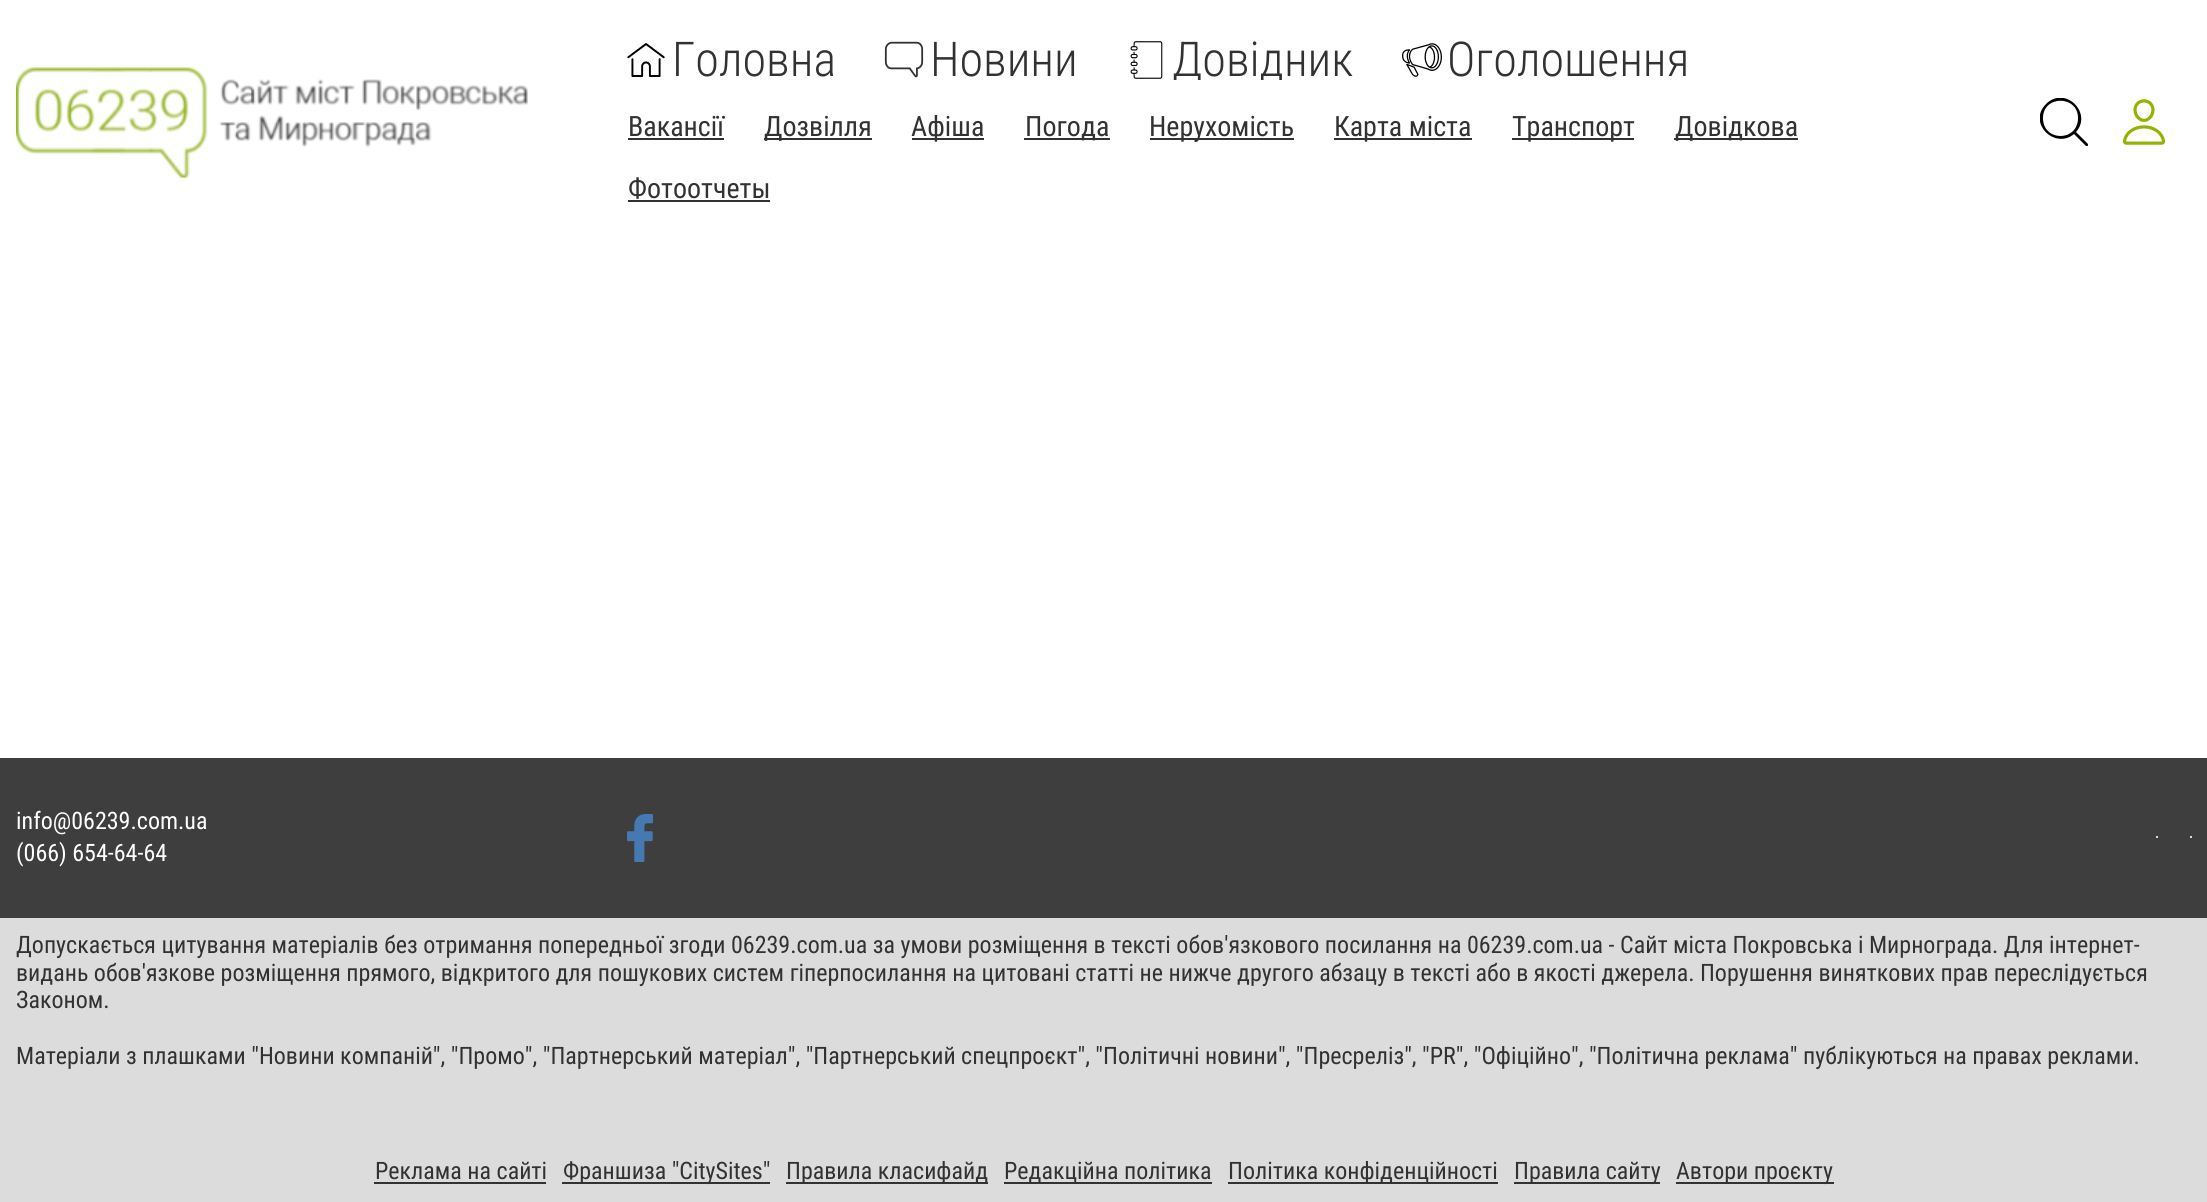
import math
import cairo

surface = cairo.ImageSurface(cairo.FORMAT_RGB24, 2207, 1202)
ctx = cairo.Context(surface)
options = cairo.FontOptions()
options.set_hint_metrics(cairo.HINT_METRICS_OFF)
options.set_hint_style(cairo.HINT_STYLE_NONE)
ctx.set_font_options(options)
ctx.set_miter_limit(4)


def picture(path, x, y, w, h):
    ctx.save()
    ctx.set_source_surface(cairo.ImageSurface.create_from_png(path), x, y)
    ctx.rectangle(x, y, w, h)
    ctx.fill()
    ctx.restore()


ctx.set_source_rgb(1, 1, 1)
ctx.paint()
picture("img1.png", 16, 67, 512, 111)
picture("img2.png", 627, 43, 38, 34)
ctx.select_font_face("Roboto Condensed Light")
ctx.set_font_size(48)
ctx.set_source_rgb(0.196, 0.196, 0.196)
ctx.move_to(672, 76)
ctx.show_text("Головна")
picture("img3.png", 884, 41, 40, 37)
ctx.move_to(930, 76)
ctx.show_text("Новини")
picture("img4.png", 1130, 41, 33, 38)
ctx.save()
ctx.rectangle(1126, 40, 228, 40)
ctx.clip()
ctx.move_to(1172, 76)
ctx.show_text("Довідник")
ctx.restore()
picture("img5.png", 1402, 43, 40, 34)
ctx.move_to(1447, 76)
ctx.show_text("Оголошення")
ctx.select_font_face("Roboto Condensed")
ctx.set_font_size(28)
ctx.move_to(628, 136)
ctx.show_text("Вакансії")
ctx.rectangle(628, 138, 96, 2)
ctx.fill()
ctx.rectangle(764, 138, 108, 2)
ctx.fill()
ctx.move_to(764, 136)
ctx.show_text("Дозвілля")
ctx.rectangle(912, 138, 72, 2)
ctx.fill()
ctx.move_to(911, 136)
ctx.show_text("Афіша")
ctx.rectangle(1024, 138, 86, 2)
ctx.fill()
ctx.move_to(1025, 136)
ctx.show_text("Погода")
ctx.rectangle(1150, 138, 144, 2)
ctx.fill()
ctx.move_to(1149, 136)
ctx.show_text("Нерухомість")
ctx.rectangle(1334, 138, 138, 2)
ctx.fill()
ctx.move_to(1334, 136)
ctx.show_text("Карта міста")
ctx.rectangle(1512, 138, 122, 2)
ctx.fill()
ctx.move_to(1512, 136)
ctx.show_text("Транспорт")
ctx.rectangle(1674, 138, 124, 2)
ctx.fill()
ctx.move_to(1675, 136)
ctx.show_text("Довідкова")
ctx.move_to(628, 198)
ctx.show_text("Фотоотчеты")
ctx.rectangle(628, 200, 142, 2)
ctx.fill()
ctx.save()
ctx.rectangle(2040, 98, 48, 48)
ctx.clip()
ctx.set_source_rgb(0, 0, 0)
ctx.new_path()
ctx.move_to(2088, 144)
ctx.line_to(2076, 132)
ctx.curve_to(2093, 113, 2065, 85, 2046, 104)
ctx.curve_to(2027, 123, 2055, 150, 2074, 134)
ctx.line_to(2086, 146)
ctx.curve_to(2087, 147, 2089, 145, 2088, 144)
ctx.close_path()
ctx.move_to(2043, 118)
ctx.curve_to(2043, 95, 2078, 95, 2078, 118)
ctx.curve_to(2078, 142, 2043, 142, 2043, 118)
ctx.close_path()
ctx.fill()
ctx.restore()
picture("img6.png", 2122, 99, 44, 46)
ctx.set_source_rgb(0.247, 0.243, 0.243)
ctx.rectangle(0, 758, 2207, 160)
ctx.fill()
ctx.set_font_size(24)
ctx.set_source_rgb(1, 1, 1)
ctx.move_to(16, 829)
ctx.show_text("info@06239.com.ua")
ctx.move_to(16, 861)
ctx.show_text("(066) 654-64-64")
picture("img7.png", 627, 814, 26, 48)
ctx.set_source_rgb(0.863, 0.863, 0.863)
ctx.rectangle(2156, 836, 2, 2)
ctx.fill()
ctx.rectangle(2190, 836, 2, 2)
ctx.fill()
ctx.rectangle(0, 918, 2207, 284)
ctx.fill()
ctx.set_source_rgb(0.196, 0.196, 0.196)
ctx.move_to(16, 953)
ctx.show_text("Допускається цитування матеріалів без отримання попередньої згоди 06239.com.ua за умови розміщення в тексті обов'язкового посилання на 06239.com.ua - Сайт міста Покровська і Мирнограда. Для інтернет-")
ctx.move_to(16, 981)
ctx.show_text("видань обов'язкове розміщення прямого, відкритого для пошукових систем гіперпосилання на цитовані статті не нижче другого абзацу в тексті або в якості джерела. Порушення виняткових прав переслідується")
ctx.move_to(16, 1008)
ctx.show_text("Законом.")
ctx.move_to(16, 1064)
ctx.show_text("Матеріали з плашками \"Новини компаній\", \"Промо\", \"Партнерський матеріал\", \"Партнерський спецпроєкт\", \"Політичні новини\", \"Пресреліз\", \"PR\", \"Офіційно\", \"Політична реклама\" публікуються на правах реклами.")
ctx.move_to(375, 1179)
ctx.show_text("Реклама на сайті")
ctx.rectangle(374, 1182, 172, 2)
ctx.fill()
ctx.rectangle(562, 1182, 208, 2)
ctx.fill()
ctx.move_to(563, 1179)
ctx.show_text("Франшиза \"CitySites\"")
ctx.rectangle(786, 1182, 202, 2)
ctx.fill()
ctx.move_to(786, 1179)
ctx.show_text("Правила класифайд")
ctx.rectangle(1004, 1182, 208, 2)
ctx.fill()
ctx.move_to(1004, 1179)
ctx.show_text("Редакційна політика")
ctx.rectangle(1228, 1182, 270, 2)
ctx.fill()
ctx.move_to(1228, 1179)
ctx.show_text("Політика конфіденційності")
ctx.rectangle(1514, 1182, 146, 2)
ctx.fill()
ctx.move_to(1514, 1179)
ctx.show_text("Правила сайту")
ctx.rectangle(1676, 1182, 158, 2)
ctx.fill()
ctx.move_to(1676, 1179)
ctx.show_text("Автори проєкту")
surface.write_to_png("page.png")
